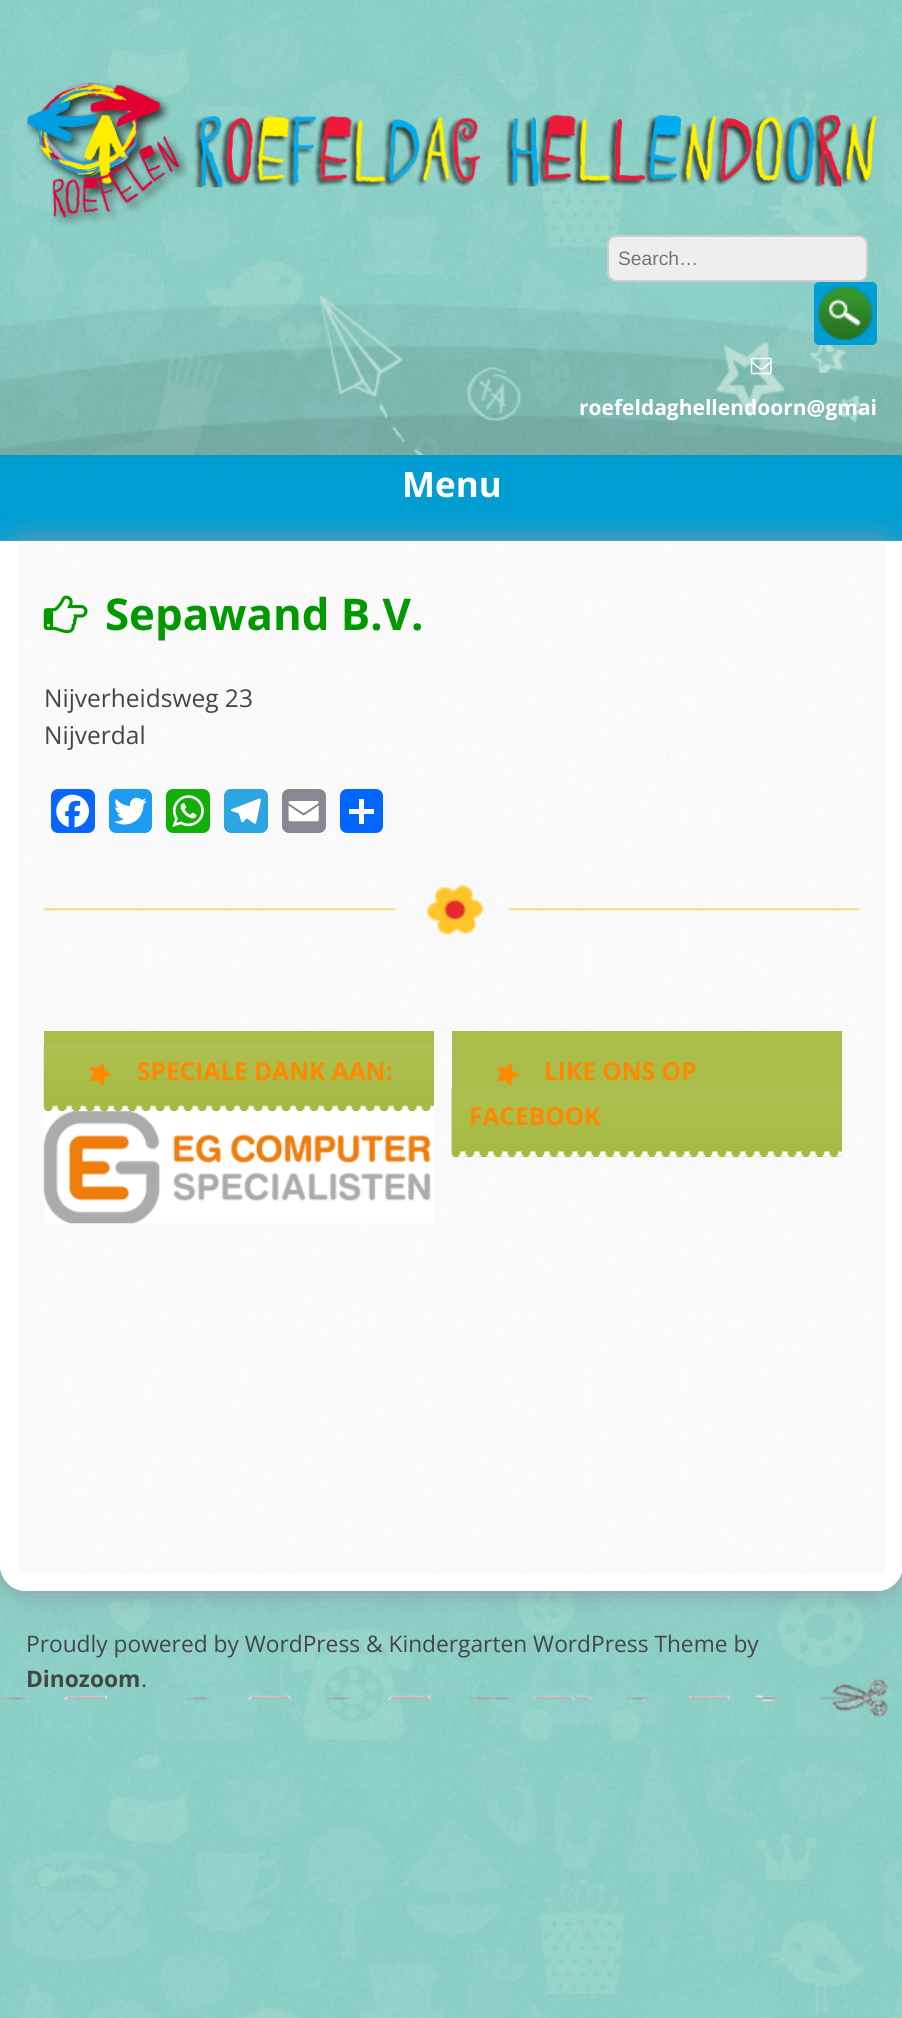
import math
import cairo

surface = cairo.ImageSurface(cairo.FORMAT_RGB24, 902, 2018)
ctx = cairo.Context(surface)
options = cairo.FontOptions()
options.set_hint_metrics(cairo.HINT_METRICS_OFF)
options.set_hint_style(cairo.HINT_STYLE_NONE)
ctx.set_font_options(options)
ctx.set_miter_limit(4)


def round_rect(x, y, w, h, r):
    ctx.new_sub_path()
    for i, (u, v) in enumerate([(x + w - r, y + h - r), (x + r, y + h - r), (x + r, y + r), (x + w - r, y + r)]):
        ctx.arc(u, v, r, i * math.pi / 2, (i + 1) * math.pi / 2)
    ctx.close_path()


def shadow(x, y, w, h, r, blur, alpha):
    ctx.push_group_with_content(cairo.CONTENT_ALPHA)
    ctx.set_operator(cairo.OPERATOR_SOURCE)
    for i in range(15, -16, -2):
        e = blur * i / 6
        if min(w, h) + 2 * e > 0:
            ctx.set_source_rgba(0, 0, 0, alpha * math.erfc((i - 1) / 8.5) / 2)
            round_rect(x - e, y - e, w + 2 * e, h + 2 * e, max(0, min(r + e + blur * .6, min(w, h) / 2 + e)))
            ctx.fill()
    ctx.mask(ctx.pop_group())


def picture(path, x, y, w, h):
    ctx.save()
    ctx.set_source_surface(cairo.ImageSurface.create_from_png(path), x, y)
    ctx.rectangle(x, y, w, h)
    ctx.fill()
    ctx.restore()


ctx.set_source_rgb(1, 1, 1)
ctx.paint()
picture("img1.png", 0, 0, 902, 2018)
picture("img2.png", 0, 295, 902, 160)
picture("img3.png", 26, 81, 851, 145)
ctx.set_source_rgb(0.933, 0.933, 0.933)
round_rect(608, 236, 259, 45, 8)
ctx.fill_preserve()
ctx.set_source_rgb(0.8, 0.8, 0.8)
ctx.stroke()
ctx.select_font_face("Liberation Sans")
ctx.set_font_size(19.25)
ctx.set_source_rgb(0.459, 0.459, 0.459)
ctx.move_to(618, 265)
ctx.show_text("Search…")
ctx.set_source_rgb(0, 0.62, 0.827)
round_rect(814, 282, 63, 63, 5)
ctx.fill()
picture("img4.png", 817, 285, 56, 56)
picture("img5.png", 750, 357, 22, 18)
ctx.select_font_face("Open Sans", cairo.FONT_SLANT_NORMAL, cairo.FONT_WEIGHT_BOLD)
ctx.set_font_size(21)
ctx.set_source_rgb(1, 1, 1)
ctx.move_to(579, 415)
ctx.show_text("roefeldaghellendoorn@gmai")
ctx.set_source_rgb(0, 0.62, 0.827)
ctx.rectangle(0, 455, 902, 86)
ctx.fill()
ctx.set_font_size(35)
ctx.set_source_rgb(1, 1, 1)
ctx.move_to(402, 497)
ctx.show_text("Menu")
ctx.set_source_rgb(0.522, 0.588, 0.624)
shadow(0, 541, 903, 1050, 26, 14, 1)
ctx.set_source_rgb(1, 1, 1)
ctx.new_path()
ctx.move_to(0, 541)
ctx.line_to(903, 541)
ctx.line_to(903, 1565)
ctx.curve_to(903, 1579.5, 891.5, 1591, 877, 1591)
ctx.line_to(26, 1591)
ctx.curve_to(11.5, 1591, 0, 1579.5, 0, 1565)
ctx.close_path()
ctx.fill()
picture("img6.png", 0, 540, 902, 1051)
ctx.set_fill_rule(cairo.FILL_RULE_EVEN_ODD)
ctx.new_path()
ctx.move_to(0, 541)
ctx.line_to(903, 541)
ctx.line_to(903, 1564)
ctx.curve_to(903, 1579, 891, 1591, 877, 1591)
ctx.line_to(26, 1591)
ctx.curve_to(12, 1591, 0, 1579, 0, 1564)
ctx.close_path()
ctx.move_to(18, 541)
ctx.line_to(886, 541)
ctx.line_to(886, 1564)
ctx.curve_to(886, 1569, 882, 1573, 877, 1573)
ctx.line_to(26, 1573)
ctx.curve_to(21, 1573, 18, 1569, 18, 1564)
ctx.close_path()
ctx.fill()
picture("img7.png", 43, 885, 817, 50)
picture("img8.png", 43, 595, 45, 39)
ctx.set_font_size(43.75)
ctx.set_source_rgb(0, 0.6, 0)
ctx.move_to(105, 630)
ctx.show_text("Sepawand B.V.")
ctx.select_font_face("Open Sans")
ctx.set_font_size(24.5)
ctx.set_source_rgb(0.267, 0.271, 0.271)
ctx.move_to(44, 707)
ctx.show_text("Nijverheidsweg 23")
ctx.move_to(44, 744)
ctx.show_text("Nijverdal")
ctx.set_source_rgb(0.031, 0.4, 1)
round_rect(51, 789, 44, 44, 7)
ctx.fill()
picture("img9.png", 56, 794, 33, 34)
ctx.set_source_rgb(0.114, 0.608, 0.941)
round_rect(109, 789, 43, 44, 7)
ctx.fill()
picture("img10.png", 114, 797, 33, 28)
ctx.set_source_rgb(0.071, 0.686, 0.039)
round_rect(166, 789, 44, 44, 7)
ctx.fill()
picture("img11.png", 172, 795, 32, 32)
ctx.set_source_rgb(0.173, 0.647, 0.878)
round_rect(224, 789, 44, 44, 7)
ctx.fill()
picture("img12.png", 230, 798, 31, 26)
ctx.set_source_rgb(0.533, 0.537, 0.565)
round_rect(282, 789, 44, 44, 7)
ctx.fill()
picture("img13.png", 288, 801, 31, 21)
ctx.set_source_rgb(0.004, 0.4, 1)
round_rect(340, 789, 43, 44, 7)
ctx.fill()
ctx.set_source_rgb(1, 1, 1)
ctx.rectangle(359, 799, 5, 25)
ctx.fill()
ctx.rectangle(349, 809, 25, 5)
ctx.fill()
ctx.set_source_rgb(0.667, 0.741, 0.294)
ctx.rectangle(44, 1031, 390, 12)
ctx.fill()
picture("img14.png", 43, 1043, 391, 69)
picture("img15.png", 89, 1063, 23, 23)
ctx.select_font_face("Open Sans", cairo.FONT_SLANT_NORMAL, cairo.FONT_WEIGHT_BOLD)
ctx.set_source_rgb(1, 0.533, 0)
ctx.move_to(137, 1080)
ctx.show_text("SPECIALE DANK AAN:")
picture("img16.png", 43, 1111, 391, 113)
ctx.set_source_rgb(0.667, 0.741, 0.294)
ctx.rectangle(452, 1031, 390, 126)
ctx.fill()
picture("img17.png", 451, 1088, 391, 69)
picture("img18.png", 497, 1063, 22, 23)
ctx.set_source_rgb(1, 0.533, 0)
ctx.move_to(544, 1080)
ctx.show_text("LIKE ONS OP")
ctx.move_to(469, 1125)
ctx.show_text("FACEBOOK")
picture("img19.png", 3, 1678, 885, 40)
ctx.select_font_face("Open Sans")
ctx.set_font_size(22.75)
ctx.set_source_rgb(0.267, 0.271, 0.271)
ctx.move_to(26, 1652)
ctx.show_text("Proudly powered by WordPress & Kindergarten WordPress Theme by")
ctx.select_font_face("Open Sans", cairo.FONT_SLANT_NORMAL, cairo.FONT_WEIGHT_BOLD)
ctx.move_to(26, 1687)
ctx.show_text("Dinozoom")
ctx.select_font_face("Open Sans")
ctx.move_to(141, 1687)
ctx.show_text(".")
surface.write_to_png("page.png")
